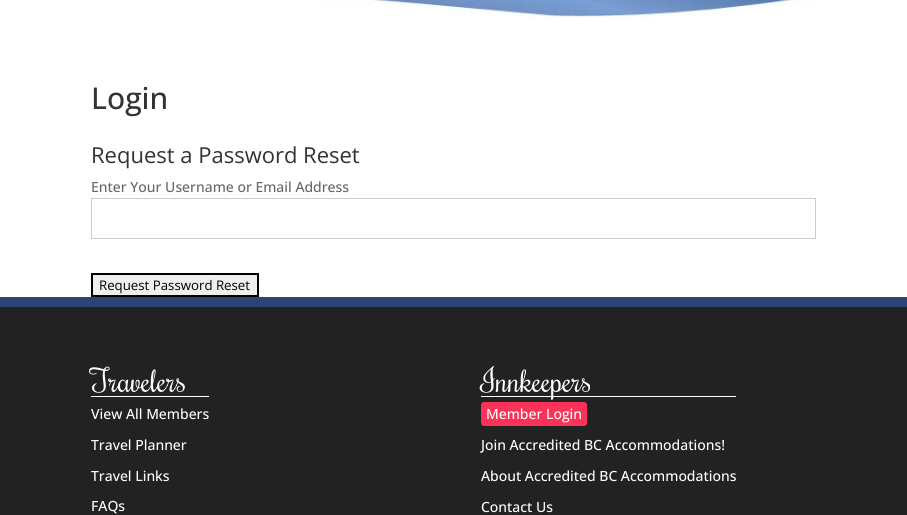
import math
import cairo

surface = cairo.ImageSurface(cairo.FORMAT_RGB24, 907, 515)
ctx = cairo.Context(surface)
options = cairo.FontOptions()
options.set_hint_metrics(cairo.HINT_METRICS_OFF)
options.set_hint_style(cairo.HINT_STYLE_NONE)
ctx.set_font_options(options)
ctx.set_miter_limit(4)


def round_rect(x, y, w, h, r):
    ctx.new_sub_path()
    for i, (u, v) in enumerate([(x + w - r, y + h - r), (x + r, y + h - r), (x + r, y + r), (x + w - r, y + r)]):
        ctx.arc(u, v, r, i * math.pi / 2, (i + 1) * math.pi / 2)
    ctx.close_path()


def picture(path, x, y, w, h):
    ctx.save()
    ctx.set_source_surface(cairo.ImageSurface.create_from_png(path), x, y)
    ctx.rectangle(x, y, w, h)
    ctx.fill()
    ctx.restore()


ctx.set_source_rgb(1, 1, 1)
ctx.paint()
picture("img1.png", 324, 0, 493, 18)
ctx.select_font_face("Open Sans Medium")
ctx.set_font_size(30)
ctx.set_source_rgb(0.2, 0.2, 0.2)
ctx.move_to(91, 109)
ctx.show_text("Login")
ctx.select_font_face("Open Sans")
ctx.set_font_size(22)
ctx.move_to(91, 163)
ctx.show_text("Request a Password Reset")
ctx.select_font_face("Open Sans Medium")
ctx.set_font_size(14)
ctx.set_source_rgb(0.4, 0.4, 0.4)
ctx.move_to(91, 192)
ctx.show_text("Enter Your Username or Email Address")
ctx.rectangle(91.5, 198.5, 724, 40)
ctx.set_source_rgb(0.8, 0.8, 0.8)
ctx.set_line_width(1)
ctx.stroke()
ctx.set_source_rgb(0.937, 0.937, 0.937)
ctx.rectangle(92, 274, 166, 22)
ctx.fill_preserve()
ctx.set_source_rgb(0, 0, 0)
ctx.set_line_width(2)
ctx.stroke()
ctx.select_font_face("Open Sans")
ctx.set_font_size(13.25)
ctx.move_to(99, 290)
ctx.show_text("Request Password Reset")
ctx.set_source_rgb(0.133, 0.133, 0.133)
ctx.rectangle(0, 307, 907, 208)
ctx.fill()
ctx.set_source_rgb(0.165, 0.271, 0.455)
ctx.rectangle(0, 297, 907, 10)
ctx.fill()
ctx.set_source_rgb(1, 1, 1)
ctx.rectangle(91, 396, 118, 1)
ctx.fill()
ctx.select_font_face("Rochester")
ctx.set_font_size(31)
ctx.move_to(91, 392)
ctx.show_text("Travelers")
ctx.select_font_face("Open Sans Medium")
ctx.set_font_size(14)
ctx.move_to(91, 419)
ctx.show_text("View All Members")
ctx.move_to(91, 450)
ctx.show_text("Travel Planner")
ctx.move_to(91, 481)
ctx.show_text("Travel Links")
ctx.move_to(91, 511)
ctx.show_text("FAQs")
ctx.rectangle(481, 396, 255, 1)
ctx.fill()
ctx.select_font_face("Rochester")
ctx.set_font_size(31)
ctx.move_to(481, 392)
ctx.show_text("Innkeepers")
ctx.set_source_rgb(0.98, 0.196, 0.345)
round_rect(481, 402, 106, 24, 3)
ctx.fill()
ctx.select_font_face("Open Sans Medium")
ctx.set_font_size(14)
ctx.set_source_rgb(1, 1, 1)
ctx.move_to(486, 419)
ctx.show_text("Member Login")
ctx.move_to(481, 450)
ctx.show_text("Join Accredited BC Accommodations!")
ctx.move_to(481, 481)
ctx.show_text("About Accredited BC Accommodations")
ctx.move_to(481, 512)
ctx.show_text("Contact Us")
surface.write_to_png("page.png")
